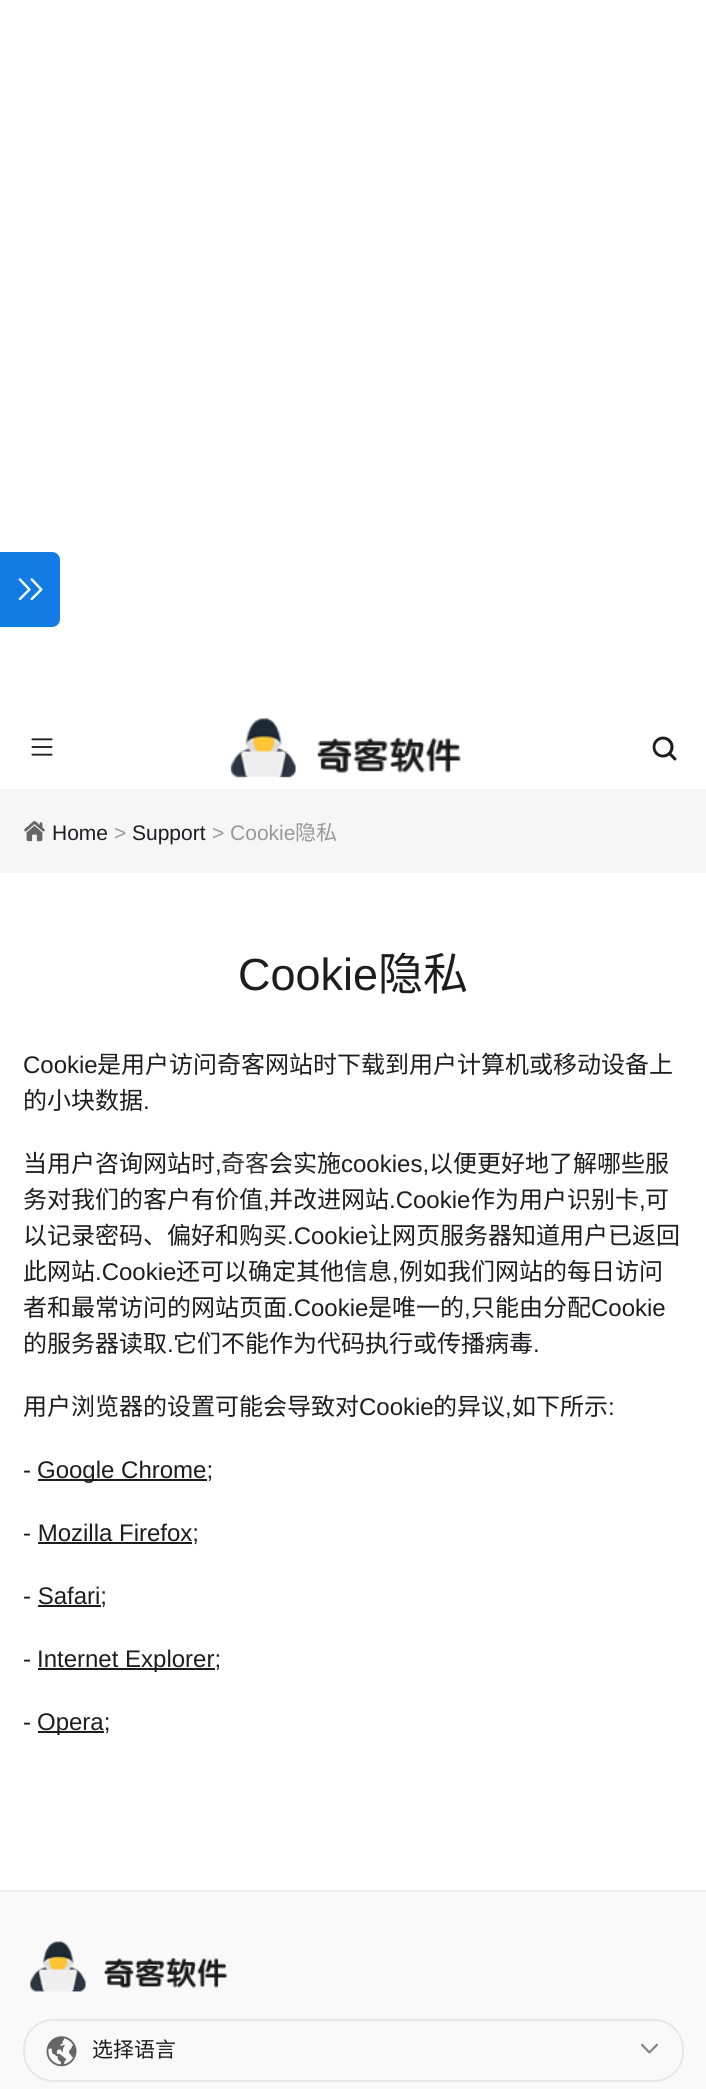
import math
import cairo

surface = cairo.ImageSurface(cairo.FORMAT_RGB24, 706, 2089)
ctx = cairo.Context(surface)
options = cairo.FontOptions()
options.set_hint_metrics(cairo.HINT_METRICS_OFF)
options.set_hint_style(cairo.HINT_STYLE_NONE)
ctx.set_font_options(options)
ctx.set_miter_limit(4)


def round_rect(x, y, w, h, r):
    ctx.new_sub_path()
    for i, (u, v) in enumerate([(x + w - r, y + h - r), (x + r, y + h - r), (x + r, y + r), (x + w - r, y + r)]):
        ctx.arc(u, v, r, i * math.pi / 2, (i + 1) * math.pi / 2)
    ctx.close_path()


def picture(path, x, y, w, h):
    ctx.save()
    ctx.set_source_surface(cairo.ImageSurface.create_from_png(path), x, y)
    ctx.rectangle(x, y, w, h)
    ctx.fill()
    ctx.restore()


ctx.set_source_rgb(1, 1, 1)
ctx.paint()
picture("img1.png", 31, 738, 22, 18)
picture("img2.png", 230, 718, 231, 60)
picture("img3.png", 652, 736, 25, 25)
ctx.set_source_rgb(0.961, 0.961, 0.961)
ctx.rectangle(0, 789, 706, 84)
ctx.fill()
picture("img4.png", 24, 820, 21, 22)
ctx.select_font_face("Liberation Sans")
ctx.set_font_size(21)
ctx.set_source_rgb(0.114, 0.114, 0.125)
ctx.move_to(52, 840)
ctx.show_text("Home")
ctx.set_source_rgb(0.6, 0.6, 0.6)
ctx.move_to(114, 840)
ctx.show_text(">")
ctx.set_source_rgb(0.114, 0.114, 0.125)
ctx.move_to(132, 840)
ctx.show_text("Support")
ctx.set_source_rgb(0.6, 0.6, 0.6)
ctx.move_to(212, 840)
ctx.show_text("> Cookie")
ctx.select_font_face("Noto Sans CJK SC")
ctx.move_to(295, 840)
ctx.show_text("隐私")
ctx.set_source_rgb(0.078, 0.486, 0.894)
ctx.new_path()
ctx.move_to(0, 552)
ctx.line_to(52, 552)
ctx.curve_to(56.5, 552, 60, 555.5, 60, 560)
ctx.line_to(60, 619)
ctx.curve_to(60, 623.5, 56.5, 627, 52, 627)
ctx.line_to(0, 627)
ctx.close_path()
ctx.fill()
picture("img5.png", 18, 578, 25, 23)
ctx.select_font_face("Liberation Sans")
ctx.set_font_size(45)
ctx.set_source_rgb(0.114, 0.114, 0.125)
ctx.move_to(238, 990)
ctx.show_text("Cookie")
ctx.select_font_face("Noto Sans CJK SC")
ctx.move_to(378, 990)
ctx.show_text("隐私")
ctx.select_font_face("Liberation Sans")
ctx.set_font_size(24)
ctx.move_to(23, 1073)
ctx.show_text("Cookie")
ctx.select_font_face("Noto Sans CJK SC")
ctx.move_to(97, 1073)
ctx.show_text("是用户访问奇客网站时下载到用户计算机或移动设备上")
ctx.move_to(23, 1109)
ctx.show_text("的小块数据")
ctx.select_font_face("Liberation Sans")
ctx.move_to(143, 1109)
ctx.show_text(".")
ctx.select_font_face("Noto Sans CJK SC")
ctx.move_to(23, 1172)
ctx.show_text("当用户咨询网站时")
ctx.select_font_face("Liberation Sans")
ctx.move_to(215, 1172)
ctx.show_text(",")
ctx.select_font_face("Noto Sans CJK SC")
ctx.set_source_rgb(0.2, 0.2, 0.2)
ctx.move_to(221, 1172)
ctx.show_text("奇客")
ctx.set_source_rgb(0.114, 0.114, 0.125)
ctx.move_to(269, 1172)
ctx.show_text("会实施")
ctx.select_font_face("Liberation Sans")
ctx.move_to(341, 1172)
ctx.show_text("cookies,")
ctx.select_font_face("Noto Sans CJK SC")
ctx.move_to(429, 1172)
ctx.show_text("以便更好地了解哪些服")
ctx.move_to(23, 1208)
ctx.show_text("务对我们的客户有价值")
ctx.select_font_face("Liberation Sans")
ctx.move_to(263, 1208)
ctx.show_text(",")
ctx.select_font_face("Noto Sans CJK SC")
ctx.move_to(269, 1208)
ctx.show_text("并改进网站")
ctx.select_font_face("Liberation Sans")
ctx.move_to(389, 1208)
ctx.show_text(".Cookie")
ctx.select_font_face("Noto Sans CJK SC")
ctx.move_to(471, 1208)
ctx.show_text("作为用户识别卡")
ctx.select_font_face("Liberation Sans")
ctx.move_to(639, 1208)
ctx.show_text(",")
ctx.select_font_face("Noto Sans CJK SC")
ctx.move_to(645, 1208)
ctx.show_text("可")
ctx.move_to(23, 1244)
ctx.show_text("以记录密码、偏好和购买")
ctx.select_font_face("Liberation Sans")
ctx.move_to(287, 1244)
ctx.show_text(".Cookie")
ctx.select_font_face("Noto Sans CJK SC")
ctx.move_to(368, 1244)
ctx.show_text("让网页服务器知道用户已返回")
ctx.move_to(23, 1280)
ctx.show_text("此网站")
ctx.select_font_face("Liberation Sans")
ctx.move_to(95, 1280)
ctx.show_text(".Cookie")
ctx.select_font_face("Noto Sans CJK SC")
ctx.move_to(176, 1280)
ctx.show_text("还可以确定其他信息")
ctx.select_font_face("Liberation Sans")
ctx.move_to(392, 1280)
ctx.show_text(",")
ctx.select_font_face("Noto Sans CJK SC")
ctx.move_to(399, 1280)
ctx.show_text("例如我们网站的每日访问")
ctx.move_to(23, 1316)
ctx.show_text("者和最常访问的网站页面")
ctx.select_font_face("Liberation Sans")
ctx.move_to(287, 1316)
ctx.show_text(".Cookie")
ctx.select_font_face("Noto Sans CJK SC")
ctx.move_to(368, 1316)
ctx.show_text("是唯一的")
ctx.select_font_face("Liberation Sans")
ctx.move_to(464, 1316)
ctx.show_text(",")
ctx.select_font_face("Noto Sans CJK SC")
ctx.move_to(471, 1316)
ctx.show_text("只能由分配")
ctx.select_font_face("Liberation Sans")
ctx.move_to(591, 1316)
ctx.show_text("Cookie")
ctx.select_font_face("Noto Sans CJK SC")
ctx.move_to(23, 1352)
ctx.show_text("的服务器读取")
ctx.select_font_face("Liberation Sans")
ctx.move_to(167, 1352)
ctx.show_text(".")
ctx.select_font_face("Noto Sans CJK SC")
ctx.move_to(173, 1352)
ctx.show_text("它们不能作为代码执行或传播病毒")
ctx.select_font_face("Liberation Sans")
ctx.move_to(533, 1352)
ctx.show_text(".")
ctx.select_font_face("Noto Sans CJK SC")
ctx.move_to(23, 1415)
ctx.show_text("用户浏览器的设置可能会导致对")
ctx.select_font_face("Liberation Sans")
ctx.move_to(359, 1415)
ctx.show_text("Cookie")
ctx.select_font_face("Noto Sans CJK SC")
ctx.move_to(433, 1415)
ctx.show_text("的异议")
ctx.select_font_face("Liberation Sans")
ctx.move_to(505, 1415)
ctx.show_text(",")
ctx.select_font_face("Noto Sans CJK SC")
ctx.move_to(512, 1415)
ctx.show_text("如下所示")
ctx.select_font_face("Liberation Sans")
ctx.move_to(608, 1415)
ctx.show_text(":")
ctx.move_to(23, 1478)
ctx.show_text("-")
ctx.rectangle(38, 1479, 169, 2)
ctx.fill()
ctx.move_to(37, 1478)
ctx.show_text("Google Chrome;")
ctx.move_to(23, 1541)
ctx.show_text("- Mozilla Firefox;")
ctx.rectangle(38, 1542, 154, 2)
ctx.fill()
ctx.move_to(23, 1604)
ctx.show_text("- Safari;")
ctx.rectangle(38, 1605, 63, 2)
ctx.fill()
ctx.move_to(23, 1667)
ctx.show_text("-")
ctx.rectangle(38, 1668, 177, 2)
ctx.fill()
ctx.move_to(37, 1667)
ctx.show_text("Internet Explorer;")
ctx.move_to(23, 1730)
ctx.show_text("-")
ctx.rectangle(38, 1731, 66, 2)
ctx.fill()
ctx.move_to(37, 1730)
ctx.show_text("Opera;")
ctx.set_source_rgb(0.976, 0.976, 0.976)
ctx.rectangle(0, 1892, 706, 197)
ctx.fill()
ctx.set_source_rgb(0.937, 0.937, 0.937)
ctx.rectangle(0, 1890, 706, 2)
ctx.fill()
picture("img6.png", 30, 1941, 198, 51)
round_rect(24, 2020, 659, 61, 29)
ctx.set_source_rgb(0.906, 0.906, 0.906)
ctx.stroke()
picture("img7.png", 46, 2036, 31, 31)
ctx.select_font_face("Noto Sans CJK SC")
ctx.set_font_size(21)
ctx.set_source_rgb(0.114, 0.114, 0.125)
ctx.move_to(92, 2057)
ctx.show_text("选择语言")
picture("img8.png", 641, 2043, 17, 11)
surface.write_to_png("page.png")
